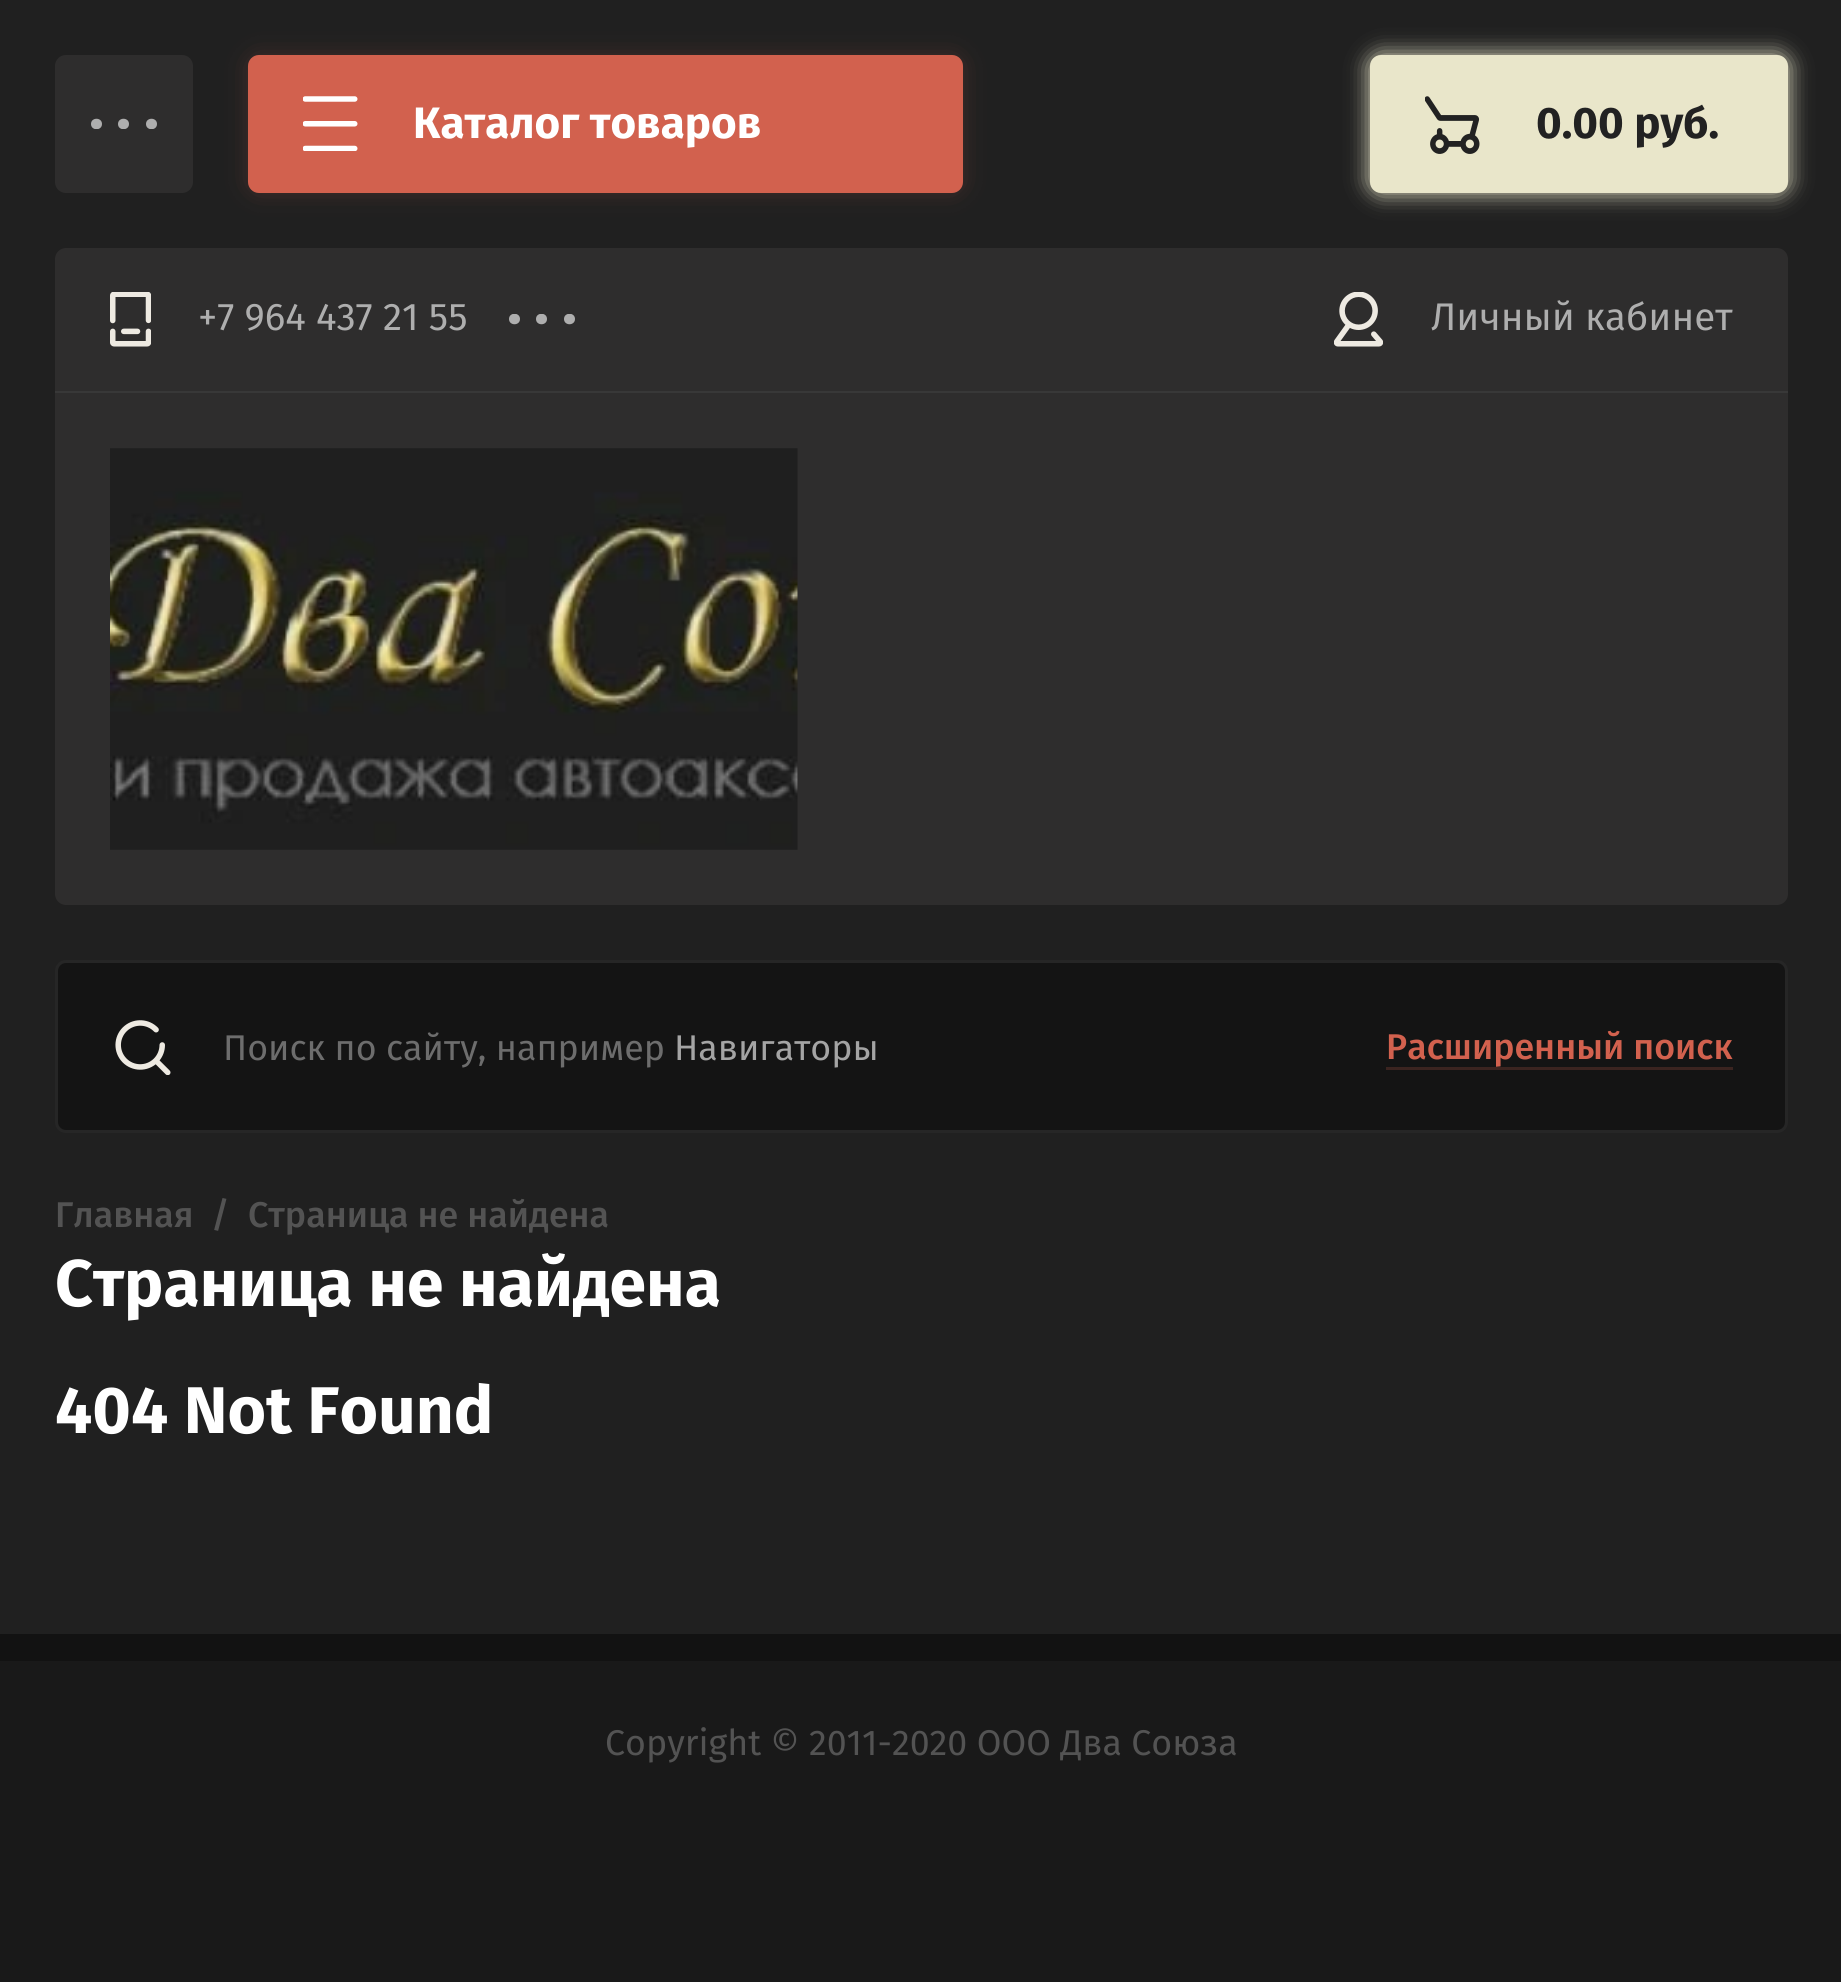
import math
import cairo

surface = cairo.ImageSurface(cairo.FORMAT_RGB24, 1841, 1982)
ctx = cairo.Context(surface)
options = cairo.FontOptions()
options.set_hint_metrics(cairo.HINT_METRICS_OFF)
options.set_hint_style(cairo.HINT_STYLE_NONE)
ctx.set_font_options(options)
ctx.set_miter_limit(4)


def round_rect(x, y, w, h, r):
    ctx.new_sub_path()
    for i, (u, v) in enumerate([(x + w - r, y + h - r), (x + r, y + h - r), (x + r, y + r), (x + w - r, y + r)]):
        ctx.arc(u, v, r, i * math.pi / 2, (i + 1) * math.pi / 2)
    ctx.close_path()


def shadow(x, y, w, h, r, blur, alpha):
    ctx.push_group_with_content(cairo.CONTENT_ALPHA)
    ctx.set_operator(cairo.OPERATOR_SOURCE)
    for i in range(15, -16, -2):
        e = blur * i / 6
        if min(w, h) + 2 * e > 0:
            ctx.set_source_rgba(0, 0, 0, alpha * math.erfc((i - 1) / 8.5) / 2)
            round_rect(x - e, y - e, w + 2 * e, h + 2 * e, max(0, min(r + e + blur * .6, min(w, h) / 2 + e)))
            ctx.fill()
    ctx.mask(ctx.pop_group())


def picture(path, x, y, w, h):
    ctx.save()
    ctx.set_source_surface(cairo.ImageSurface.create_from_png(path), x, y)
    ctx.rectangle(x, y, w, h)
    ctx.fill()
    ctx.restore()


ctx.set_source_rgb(0.125, 0.125, 0.125)
ctx.paint()
ctx.set_source_rgb(0.18, 0.176, 0.176)
round_rect(55, 55, 138, 138, 11)
ctx.fill()
ctx.save()
ctx.rectangle(91, 118, 66, 11)
ctx.clip()
ctx.set_source_rgb(0.682, 0.682, 0.682)
ctx.new_path()
ctx.move_to(91, 124)
ctx.curve_to(91, 117, 102, 117, 102, 124)
ctx.curve_to(102, 131, 91, 131, 91, 124)
ctx.close_path()
ctx.move_to(118, 124)
ctx.curve_to(118, 117, 129, 117, 129, 124)
ctx.curve_to(129, 131, 118, 131, 118, 124)
ctx.close_path()
ctx.move_to(146, 124)
ctx.curve_to(146, 117, 157, 117, 157, 124)
ctx.curve_to(157, 131, 146, 131, 146, 124)
ctx.close_path()
ctx.fill()
ctx.restore()
ctx.set_source_rgb(0.824, 0.38, 0.306)
shadow(248, 55, 715, 138, 11, 11, 0.2)
ctx.set_source_rgb(0.824, 0.38, 0.306)
round_rect(248, 55, 715, 138, 11)
ctx.fill()
picture("img1.png", 303, 96, 55, 55)
ctx.select_font_face("Fira Sans", cairo.FONT_SLANT_NORMAL, cairo.FONT_WEIGHT_BOLD)
ctx.set_font_size(44)
ctx.set_source_rgb(1, 1, 1)
ctx.move_to(413, 138)
ctx.show_text("Каталог товаров")
ctx.set_source_rgb(0.914, 0.902, 0.792)
shadow(1370, 55, 418, 138, 11, 11, 1)
ctx.set_source_rgb(0.914, 0.902, 0.792)
round_rect(1370, 55, 418, 138, 11)
ctx.fill()
picture("img2.png", 1425, 96, 55, 58)
ctx.set_source_rgb(0.133, 0.133, 0.133)
ctx.move_to(1536, 138)
ctx.show_text("0.00 руб.")
ctx.set_source_rgb(0.18, 0.176, 0.176)
ctx.new_path()
ctx.move_to(66, 248)
ctx.line_to(1777, 248)
ctx.curve_to(1783, 248, 1788, 253, 1788, 259)
ctx.line_to(1788, 393)
ctx.line_to(55, 393)
ctx.line_to(55, 259)
ctx.curve_to(55, 253, 60, 248, 66, 248)
ctx.close_path()
ctx.fill()
ctx.set_source_rgb(0.22, 0.22, 0.22)
ctx.rectangle(55, 391, 1733, 2)
ctx.fill()
picture("img3.png", 110, 292, 41, 55)
ctx.select_font_face("Fira Sans")
ctx.set_font_size(38.5)
ctx.set_source_rgb(0.682, 0.682, 0.682)
ctx.move_to(198, 330)
ctx.show_text("+7 964 437 21 55")
ctx.save()
ctx.rectangle(509, 314, 66, 11)
ctx.clip()
ctx.new_path()
ctx.move_to(509, 319)
ctx.curve_to(509, 312, 520, 312, 520, 319)
ctx.curve_to(520, 326, 509, 326, 509, 319)
ctx.close_path()
ctx.move_to(536, 319)
ctx.curve_to(536, 312, 547, 312, 547, 319)
ctx.curve_to(547, 326, 536, 326, 536, 319)
ctx.close_path()
ctx.move_to(564, 319)
ctx.curve_to(564, 312, 575, 312, 575, 319)
ctx.curve_to(575, 326, 564, 326, 564, 319)
ctx.close_path()
ctx.fill()
ctx.restore()
picture("img4.png", 1334, 292, 49, 55)
ctx.move_to(1431, 330)
ctx.show_text("Личный кабинет")
ctx.set_source_rgb(0.18, 0.176, 0.176)
ctx.new_path()
ctx.move_to(55, 393)
ctx.line_to(1788, 393)
ctx.line_to(1788, 894)
ctx.curve_to(1788, 900, 1783, 905, 1777, 905)
ctx.line_to(66, 905)
ctx.curve_to(60, 905, 55, 900, 55, 894)
ctx.close_path()
ctx.fill()
picture("img5.png", 110, 448, 688, 402)
ctx.set_source_rgb(0.082, 0.082, 0.082)
round_rect(56.5, 961.5, 1730, 170, 9.5)
ctx.fill_preserve()
ctx.set_source_rgb(0.149, 0.149, 0.149)
ctx.set_line_width(3)
ctx.stroke()
picture("img6.png", 115, 1020, 56, 55)
ctx.set_font_size(35.75)
ctx.set_source_rgb(0.427, 0.427, 0.427)
ctx.move_to(223, 1060)
ctx.show_text("Поиск по сайту, например")
ctx.set_source_rgb(0.643, 0.643, 0.643)
ctx.move_to(674, 1060)
ctx.show_text("Навигаторы")
ctx.select_font_face("Fira Sans Medium")
ctx.set_source_rgb(0.824, 0.38, 0.306)
ctx.move_to(1386, 1059)
ctx.show_text("Расширенный поиск")
ctx.set_source_rgb(0.231, 0.141, 0.125)
ctx.rectangle(1386, 1067, 347, 3)
ctx.fill()
ctx.set_source_rgb(0.325, 0.325, 0.325)
ctx.move_to(55, 1227)
ctx.show_text("Главная")
ctx.move_to(211, 1227)
ctx.show_text("/")
ctx.move_to(248, 1227)
ctx.show_text("Страница не найдена")
ctx.select_font_face("Fira Sans", cairo.FONT_SLANT_NORMAL, cairo.FONT_WEIGHT_BOLD)
ctx.set_font_size(66)
ctx.set_source_rgb(1, 1, 1)
ctx.move_to(55, 1306)
ctx.show_text("Страница не найдена")
ctx.move_to(55, 1433)
ctx.show_text("404 Not Found")
ctx.set_source_rgb(0.098, 0.098, 0.098)
ctx.rectangle(0, 1661, 1841, 321)
ctx.fill()
ctx.set_source_rgb(0.071, 0.071, 0.071)
ctx.rectangle(0, 1634, 1841, 27)
ctx.fill()
ctx.select_font_face("Fira Sans")
ctx.set_font_size(35.75)
ctx.set_source_rgb(0.325, 0.325, 0.325)
ctx.move_to(605, 1755)
ctx.show_text("Copyright © 2011-2020 ООО Два Союза")
surface.write_to_png("page.png")
